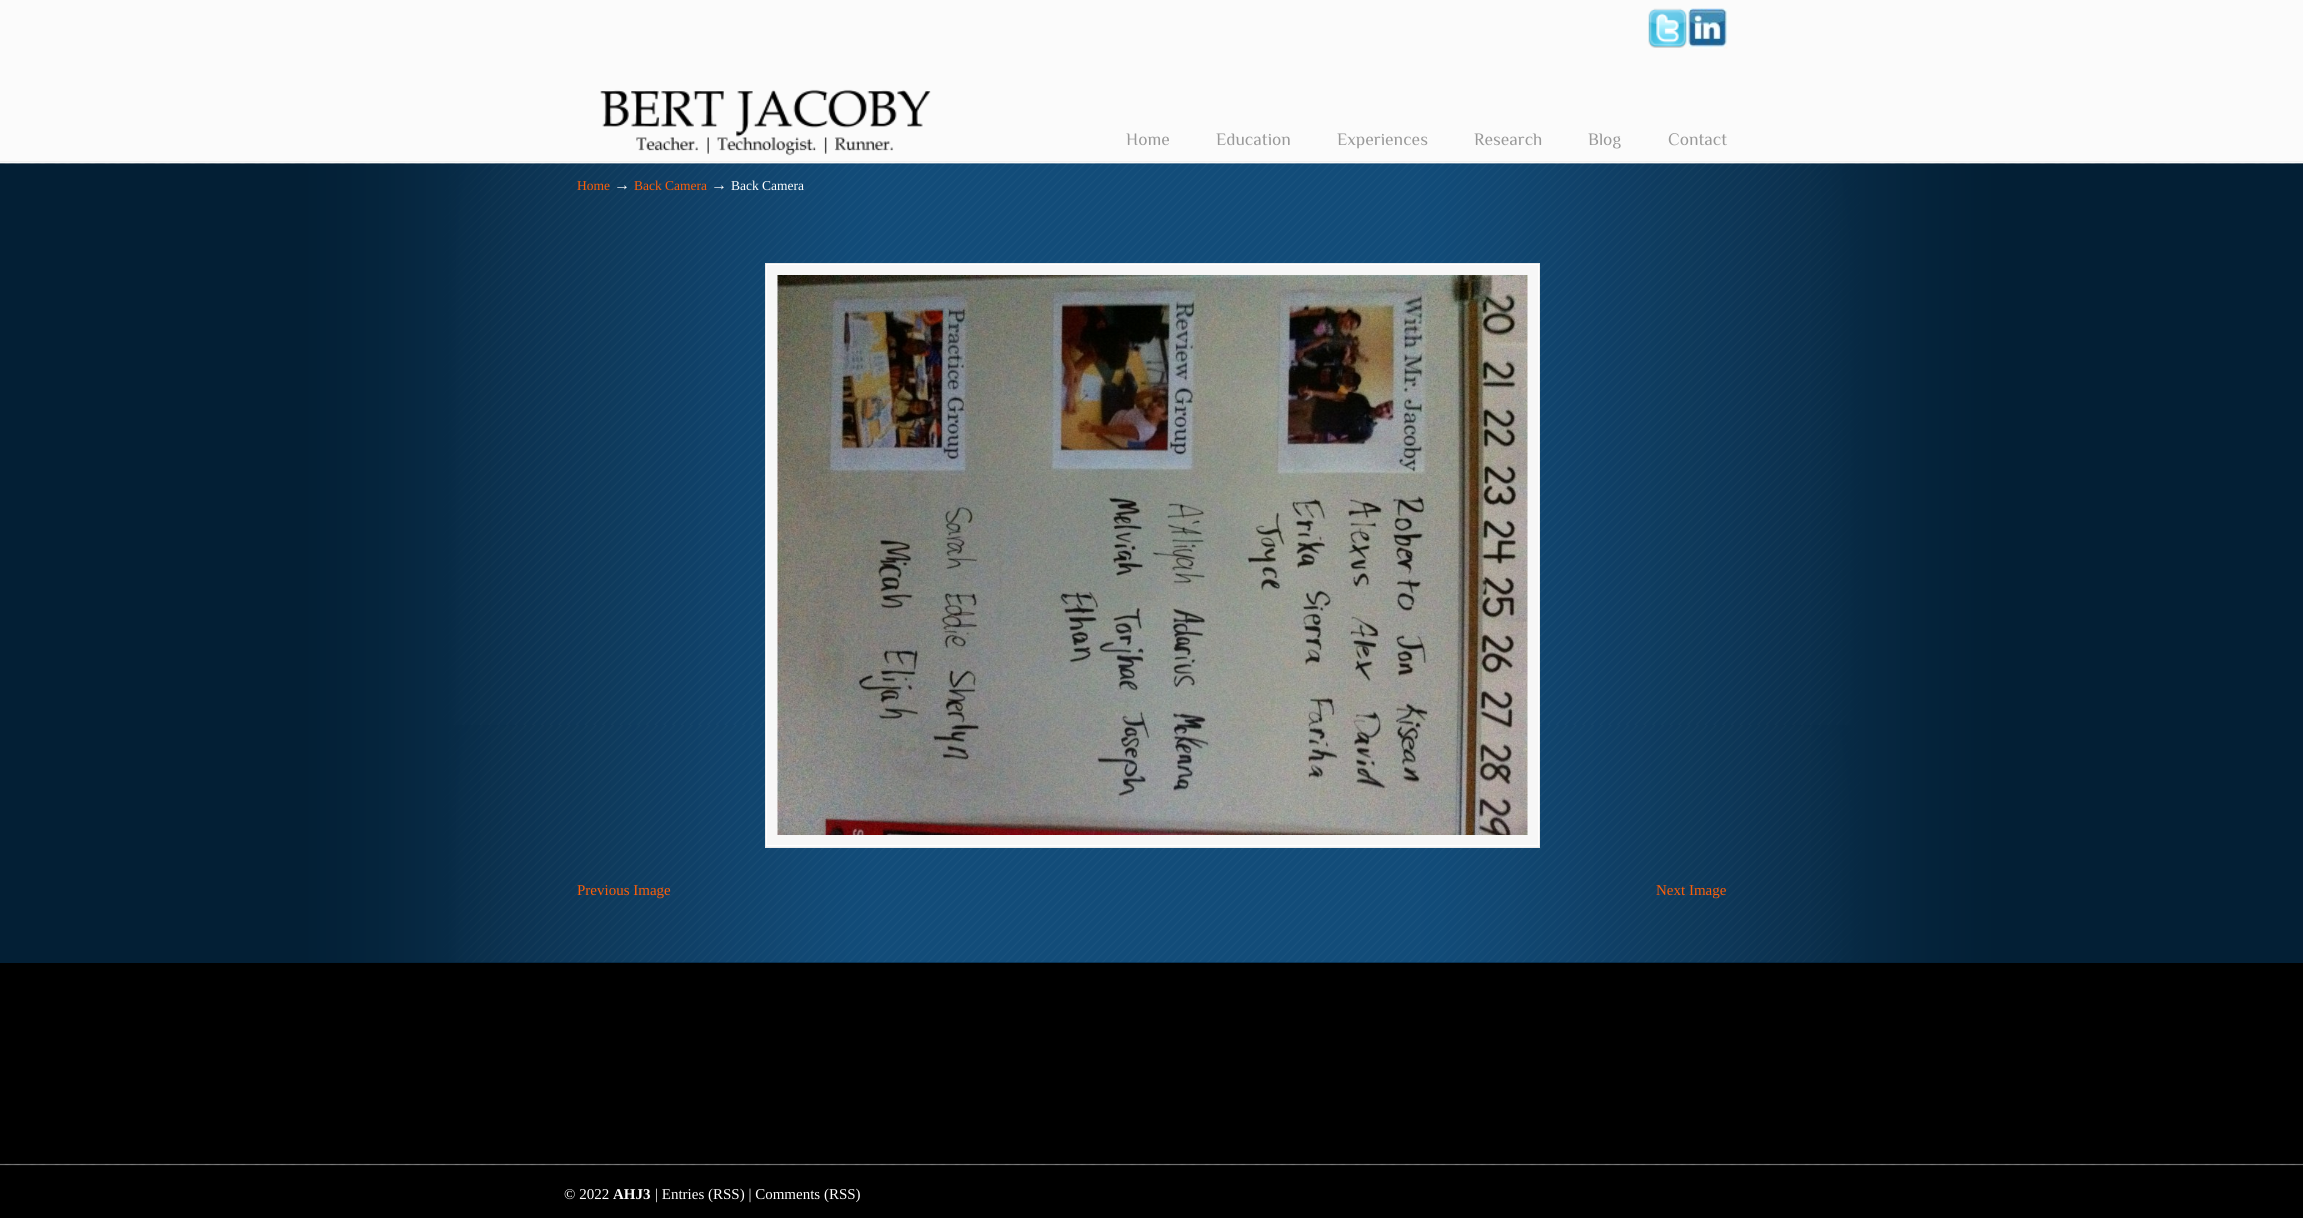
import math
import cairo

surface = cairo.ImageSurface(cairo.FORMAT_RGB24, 2303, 1218)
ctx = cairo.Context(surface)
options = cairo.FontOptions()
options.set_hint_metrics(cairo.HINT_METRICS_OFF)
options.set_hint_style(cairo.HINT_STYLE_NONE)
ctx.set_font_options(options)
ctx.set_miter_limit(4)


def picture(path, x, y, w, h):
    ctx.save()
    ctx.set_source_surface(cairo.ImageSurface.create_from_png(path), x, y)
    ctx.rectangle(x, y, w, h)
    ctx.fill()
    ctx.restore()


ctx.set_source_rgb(0, 0, 0)
ctx.paint()
ctx.set_source_rgb(0.984, 0.984, 0.984)
ctx.rectangle(0, 0, 2303, 163)
ctx.fill()
picture("img1.png", 1648, 8, 39, 40)
picture("img2.png", 1687, 8, 41, 41)
picture("img3.png", 600, 89, 331, 67)
ctx.select_font_face("Philosopher")
ctx.set_font_size(17.5)
ctx.set_source_rgb(0.6, 0.6, 0.6)
ctx.move_to(1126, 145)
ctx.show_text("Home")
ctx.move_to(1216, 145)
ctx.show_text("Education")
ctx.move_to(1337, 145)
ctx.show_text("Experiences")
ctx.move_to(1474, 145)
ctx.show_text("Research")
ctx.move_to(1588, 145)
ctx.show_text("Blog")
ctx.move_to(1668, 145)
ctx.show_text("Contact")
picture("img4.png", 0, 161, 2303, 1)
ctx.set_source_rgb(0.012, 0.122, 0.208)
ctx.rectangle(0, 163, 2303, 800)
ctx.fill()
picture("img5.png", 308, 163, 1689, 800)
picture("img6.png", 0, 163, 2303, 2)
ctx.select_font_face("Liberation Serif")
ctx.set_font_size(13.5)
ctx.set_source_rgb(0.996, 0.369, 0.031)
ctx.move_to(577, 190)
ctx.show_text("Home")
ctx.set_font_size(16)
ctx.set_source_rgb(1, 1, 1)
ctx.move_to(614, 190)
ctx.show_text("→")
ctx.set_font_size(13.5)
ctx.set_source_rgb(0.996, 0.369, 0.031)
ctx.move_to(634, 190)
ctx.show_text("Back Camera")
ctx.set_font_size(16)
ctx.set_source_rgb(1, 1, 1)
ctx.move_to(711, 190)
ctx.show_text("→")
ctx.set_font_size(13.5)
ctx.move_to(731, 190)
ctx.show_text("Back Camera")
ctx.set_source_rgb(0.965, 0.965, 0.965)
ctx.rectangle(766, 265, 773, 582)
ctx.fill()
ctx.rectangle(765.5, 263.5, 774, 584)
ctx.set_source_rgb(0.918, 0.918, 0.918)
ctx.set_line_width(1)
ctx.stroke()
ctx.rectangle(766.5, 264.5, 772, 581)
ctx.set_source_rgb(1, 1, 1)
ctx.stroke()
picture("img7.png", 777, 275, 751, 560)
ctx.set_font_size(15)
ctx.set_source_rgb(0.996, 0.369, 0.031)
ctx.move_to(577, 895)
ctx.show_text("Previous Image")
ctx.move_to(1656, 895)
ctx.show_text("Next Image")
picture("img8.png", 0, 1163, 2303, 3)
ctx.set_source_rgb(1, 1, 1)
ctx.move_to(564, 1199)
ctx.show_text("© 2022")
ctx.select_font_face("Liberation Serif", cairo.FONT_SLANT_NORMAL, cairo.FONT_WEIGHT_BOLD)
ctx.move_to(613, 1199)
ctx.show_text("AHJ3")
ctx.select_font_face("Liberation Serif")
ctx.move_to(655, 1199)
ctx.show_text("| Entries (RSS) | Comments (RSS)")
surface.write_to_png("page.png")
